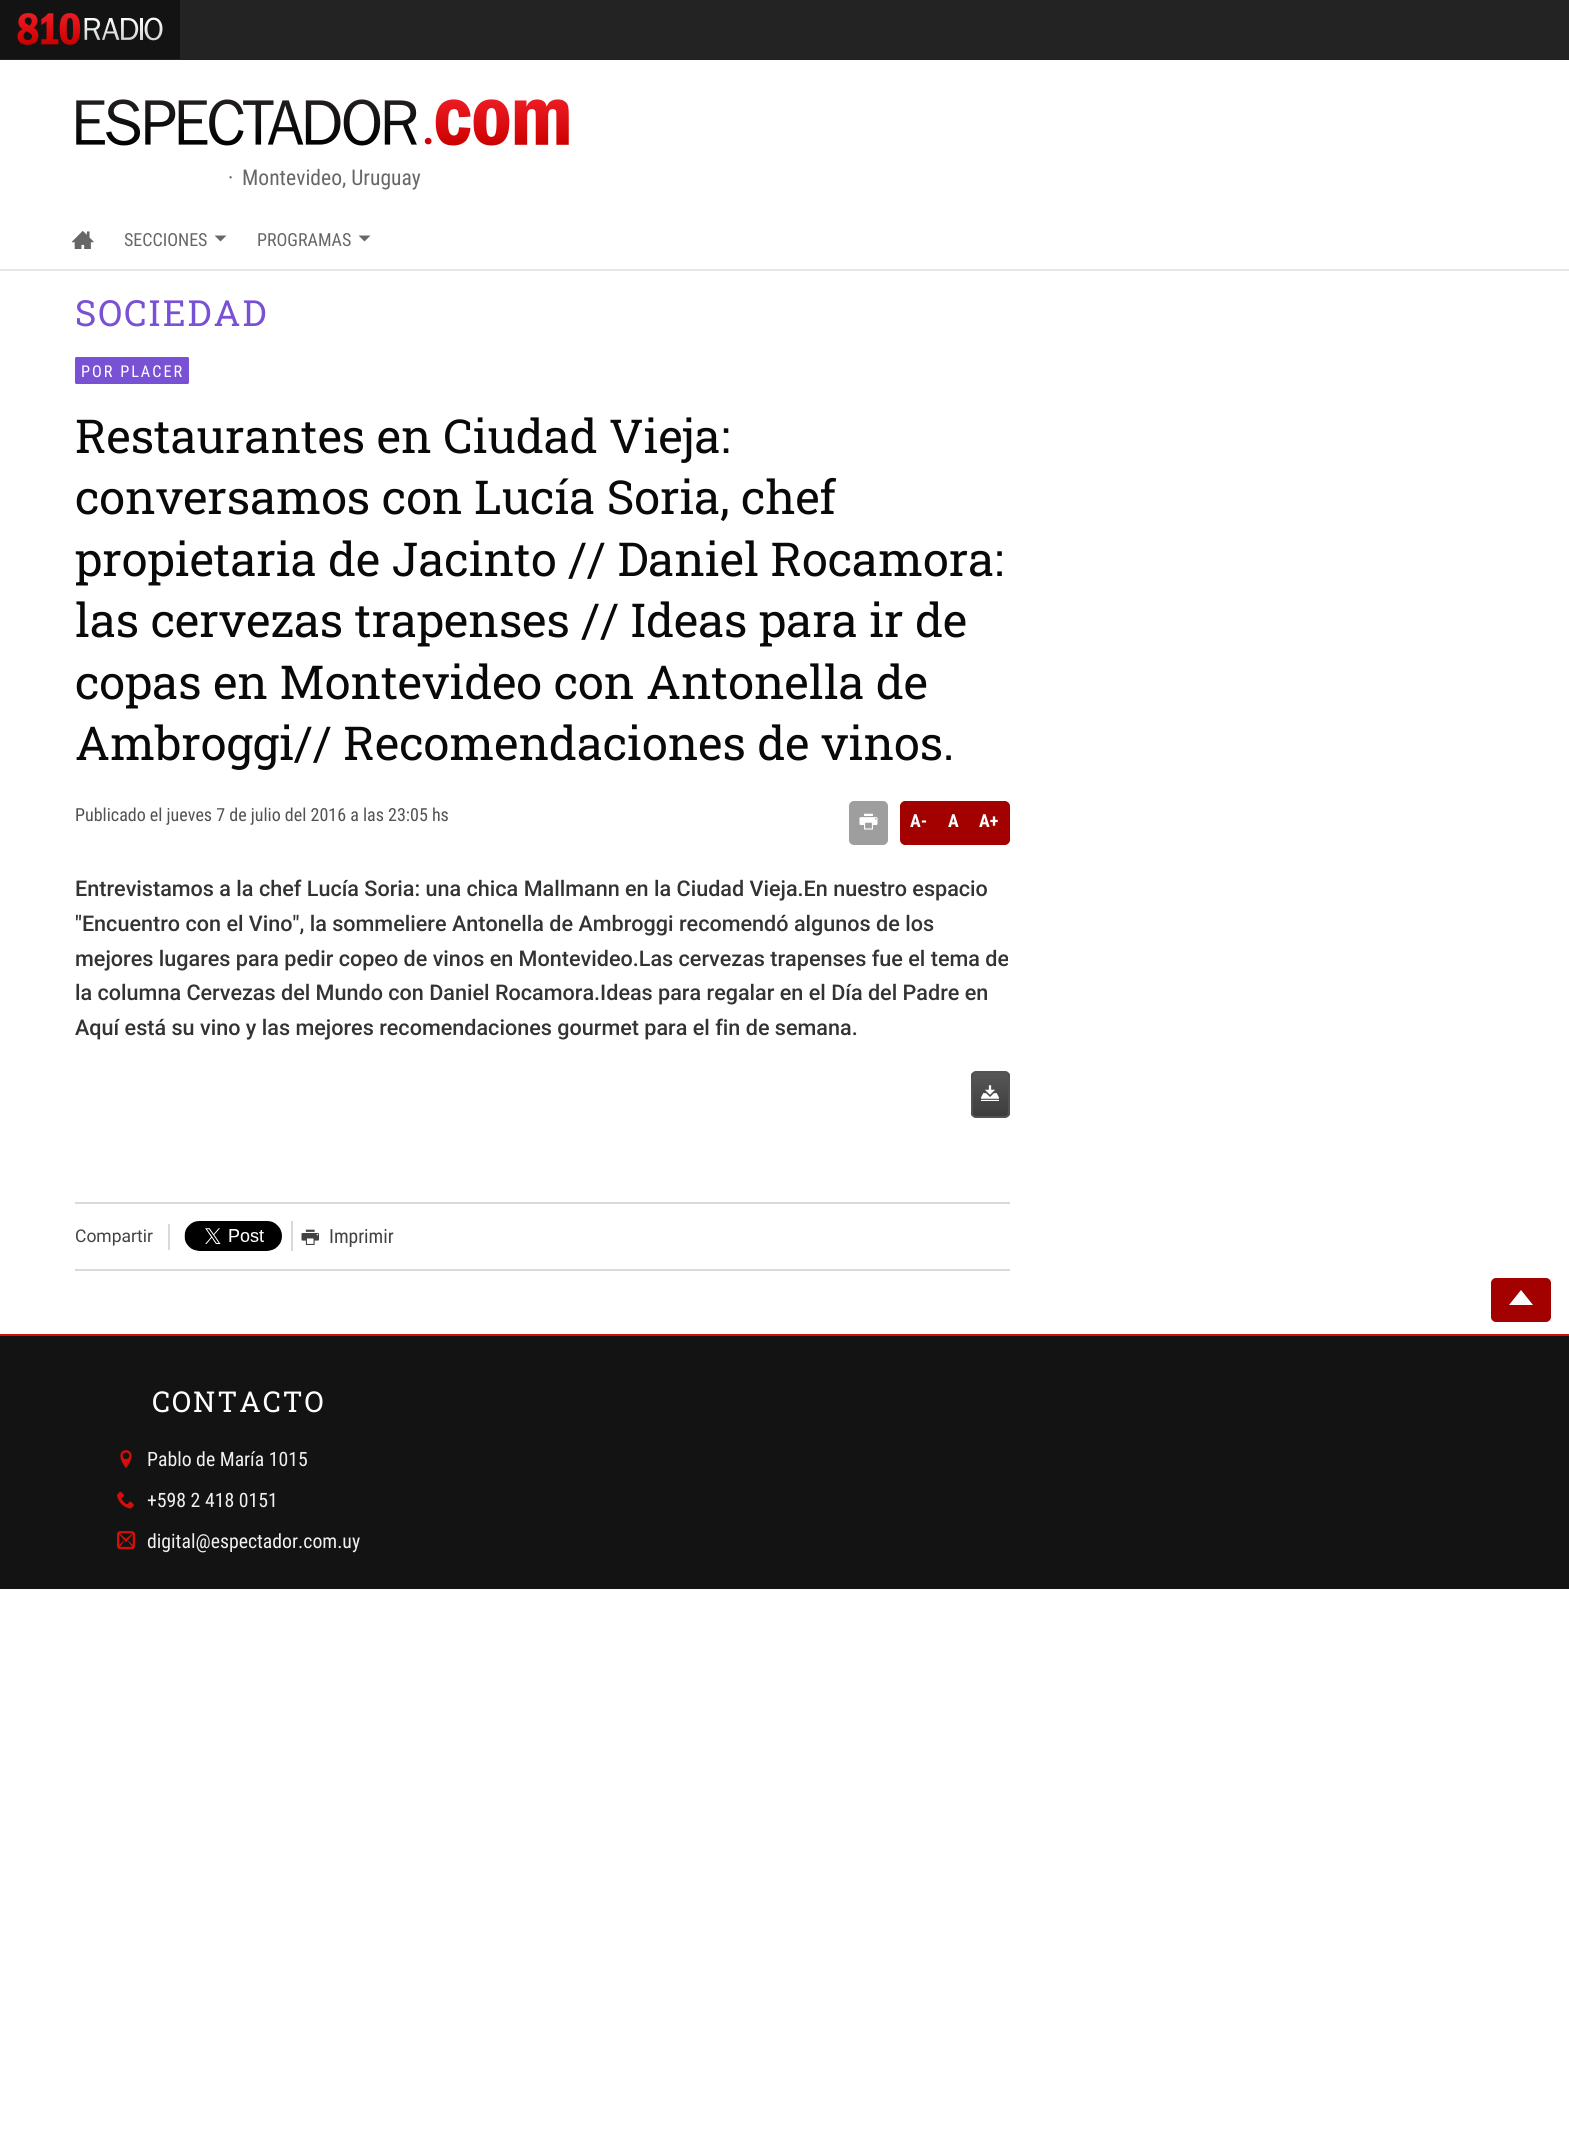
import math
import cairo

surface = cairo.ImageSurface(cairo.FORMAT_RGB24, 1569, 2153)
ctx = cairo.Context(surface)
options = cairo.FontOptions()
options.set_hint_metrics(cairo.HINT_METRICS_OFF)
options.set_hint_style(cairo.HINT_STYLE_NONE)
ctx.set_font_options(options)
ctx.set_miter_limit(4)


def spaced_text(x, y, s, letter, word):
    ctx.move_to(x, y)
    for ch in s:
        ctx.show_text(ch)
        ctx.rel_move_to(letter + word * (ch == ' '), 0)


def round_rect(x, y, w, h, r):
    ctx.new_sub_path()
    for i, (u, v) in enumerate([(x + w - r, y + h - r), (x + r, y + h - r), (x + r, y + r), (x + w - r, y + r)]):
        ctx.arc(u, v, r, i * math.pi / 2, (i + 1) * math.pi / 2)
    ctx.close_path()


def picture(path, x, y, w, h):
    ctx.save()
    ctx.set_source_surface(cairo.ImageSurface.create_from_png(path), x, y)
    ctx.rectangle(x, y, w, h)
    ctx.fill()
    ctx.restore()


ctx.set_source_rgb(1, 1, 1)
ctx.paint()
ctx.set_source_rgb(0.137, 0.137, 0.137)
ctx.rectangle(0, 0, 1569, 60)
ctx.fill()
ctx.set_source_rgb(0.075, 0.075, 0.075)
ctx.rectangle(0, 0, 180, 59)
ctx.fill()
picture("img1.png", 17, 13, 146, 32)
picture("img2.png", 76, 99, 493, 47)
ctx.select_font_face("Roboto Condensed")
ctx.set_font_size(21.6)
ctx.set_source_rgb(0.404, 0.404, 0.404)
ctx.move_to(228, 185)
ctx.show_text("·")
ctx.move_to(242, 185)
ctx.show_text("Montevideo, Uruguay")
ctx.set_source_rgb(0.902, 0.902, 0.902)
ctx.rectangle(0, 269, 1569, 2)
ctx.fill()
picture("img3.png", 72, 230, 22, 19)
ctx.set_font_size(18)
ctx.set_source_rgb(0.404, 0.404, 0.404)
ctx.move_to(124, 246)
ctx.show_text("SECCIONES")
ctx.new_path()
ctx.move_to(214.5, 235.5)
ctx.line_to(226.5, 235.5)
ctx.line_to(220.5, 241.5)
ctx.close_path()
ctx.fill()
ctx.move_to(257, 246)
ctx.show_text("PROGRAMAS")
ctx.new_path()
ctx.move_to(358.5, 235.5)
ctx.line_to(370.5, 235.5)
ctx.line_to(364.5, 241.5)
ctx.close_path()
ctx.fill()
ctx.select_font_face("Roboto Slab")
ctx.set_font_size(36)
ctx.set_source_rgb(0.475, 0.318, 0.835)
spaced_text(75, 326, "SOCIEDAD", 2, 0)
ctx.set_source_rgb(0.851, 0.851, 0.851)
ctx.rectangle(75, 1202, 935, 2)
ctx.fill()
ctx.set_source_rgb(0.475, 0.318, 0.835)
round_rect(75, 357, 114, 27, 1.5)
ctx.fill()
ctx.select_font_face("Roboto Condensed")
ctx.set_font_size(16.25)
ctx.set_source_rgb(1, 1, 1)
spaced_text(81, 377, "POR PLACER", 2, 0)
ctx.select_font_face("Roboto Slab")
ctx.set_font_size(46.75)
ctx.set_source_rgb(0.039, 0.039, 0.039)
ctx.move_to(75, 453)
ctx.show_text("Restaurantes en Ciudad Vieja:")
ctx.move_to(75, 514)
ctx.show_text("conversamos con Lucía Soria, chef")
ctx.move_to(75, 576)
ctx.show_text("propietaria de Jacinto // Daniel Rocamora:")
ctx.move_to(75, 637)
ctx.show_text("las cervezas trapenses // Ideas para ir de")
ctx.move_to(75, 699)
ctx.show_text("copas en Montevideo con Antonella de")
ctx.move_to(75, 760)
ctx.show_text("Ambroggi// Recomendaciones de vinos.")
ctx.select_font_face("Roboto Condensed")
ctx.set_font_size(18)
ctx.set_source_rgb(0.322, 0.322, 0.322)
ctx.move_to(75, 821)
ctx.show_text("Publicado el jueves 7 de julio del 2016 a las 23:05 hs")
ctx.set_source_rgb(0.62, 0.62, 0.62)
round_rect(850, 802, 37, 42, 4)
ctx.fill_preserve()
ctx.stroke()
picture("img4.png", 859, 813, 19, 17)
ctx.set_source_rgb(0.639, 0, 0)
ctx.new_path()
ctx.move_to(905, 802)
ctx.line_to(937, 802)
ctx.line_to(937, 844)
ctx.line_to(905, 844)
ctx.curve_to(903, 844, 901, 842, 901, 840)
ctx.line_to(901, 806)
ctx.curve_to(901, 804, 903, 802, 905, 802)
ctx.close_path()
ctx.fill_preserve()
ctx.stroke()
ctx.select_font_face("Roboto Condensed", cairo.FONT_SLANT_NORMAL, cairo.FONT_WEIGHT_BOLD)
ctx.set_source_rgb(1, 1, 1)
ctx.move_to(910, 827)
ctx.show_text("A-")
ctx.set_source_rgb(0.639, 0, 0)
ctx.rectangle(938, 801, 31, 44)
ctx.fill()
ctx.set_source_rgb(1, 1, 1)
ctx.move_to(948, 827)
ctx.show_text("A")
ctx.set_source_rgb(0.639, 0, 0)
ctx.new_path()
ctx.move_to(970, 802)
ctx.line_to(1005, 802)
ctx.curve_to(1007, 802, 1009, 804, 1009, 806)
ctx.line_to(1009, 840)
ctx.curve_to(1009, 842, 1007, 844, 1005, 844)
ctx.line_to(970, 844)
ctx.close_path()
ctx.fill_preserve()
ctx.stroke()
ctx.set_source_rgb(1, 1, 1)
ctx.move_to(979, 827)
ctx.show_text("A+")
ctx.select_font_face("Roboto Medium")
ctx.set_font_size(21.6)
ctx.set_source_rgb(0.2, 0.2, 0.2)
ctx.move_to(75, 896)
ctx.show_text("Entrevistamos a la chef Lucía Soria: una chica Mallmann en la Ciudad Vieja.En nuestro espacio")
ctx.move_to(75, 931)
ctx.show_text("\"Encuentro con el Vino\", la sommeliere Antonella de Ambroggi recomendó algunos de los")
ctx.move_to(75, 966)
ctx.show_text("mejores lugares para pedir copeo de vinos en Montevideo.Las cervezas trapenses fue el tema de")
ctx.move_to(75, 1000)
ctx.show_text("la columna Cervezas del Mundo con Daniel Rocamora.Ideas para regalar en el Día del Padre en")
ctx.move_to(75, 1035)
ctx.show_text("Aquí está su vino y las mejores recomendaciones gourmet para el fin de semana.")
ctx.save()
round_rect(971, 1071, 39, 47, 5)
ctx.clip()
gradient = cairo.LinearGradient(990, 1073, 990, 1116)
gradient.add_color_stop_rgba(0.01, 0.337, 0.337, 0.337, 1)
gradient.add_color_stop_rgba(1, 0.239, 0.239, 0.239, 1)
ctx.set_source(gradient)
ctx.rectangle(971, 1073, 39, 43)
ctx.fill()
ctx.restore()
round_rect(972, 1072, 37, 45, 4)
ctx.set_source_rgb(0.322, 0.322, 0.322)
ctx.stroke()
picture("img5.png", 981, 1085, 18, 16)
ctx.set_source_rgb(0.851, 0.851, 0.851)
ctx.rectangle(75, 1269, 935, 2)
ctx.fill()
ctx.select_font_face("Roboto")
ctx.set_font_size(17.5)
ctx.set_source_rgb(0.259, 0.259, 0.259)
ctx.move_to(75, 1242)
ctx.show_text("Compartir")
ctx.set_source_rgb(0.851, 0.851, 0.851)
ctx.rectangle(168, 1224, 2, 26)
ctx.fill()
ctx.rectangle(291, 1221, 2, 30)
ctx.fill()
picture("img6.png", 184, 1221, 98, 30)
picture("img7.png", 301, 1229, 18, 16)
ctx.select_font_face("Roboto Condensed")
ctx.set_font_size(19.5)
ctx.set_source_rgb(0.259, 0.259, 0.259)
ctx.move_to(329, 1243)
ctx.show_text("Imprimir")
ctx.set_source_rgb(0.075, 0.075, 0.075)
ctx.rectangle(0, 1336, 1569, 253)
ctx.fill()
ctx.set_source_rgb(0.831, 0.055, 0.043)
ctx.rectangle(0, 1334, 1569, 2)
ctx.fill()
ctx.set_source_rgb(0.639, 0, 0)
round_rect(1492, 1279, 58, 42, 4)
ctx.fill_preserve()
ctx.stroke()
ctx.set_source_rgb(1, 1, 1)
ctx.new_path()
ctx.move_to(1533, 1305)
ctx.line_to(1509, 1305)
ctx.line_to(1521, 1290)
ctx.close_path()
ctx.fill()
ctx.select_font_face("Roboto Slab")
ctx.set_font_size(28.75)
spaced_text(152, 1412, "CONTACTO", 2, 0)
picture("img8.png", 120, 1450, 12, 18)
ctx.select_font_face("Roboto Condensed")
ctx.set_font_size(19.75)
ctx.set_source_rgb(0.941, 0.941, 0.941)
ctx.move_to(147, 1466)
ctx.show_text("Pablo de María 1015")
picture("img9.png", 117, 1491, 17, 18)
ctx.move_to(147, 1507)
ctx.show_text("+598 2 418 0151")
picture("img10.png", 117, 1531, 18, 19)
ctx.move_to(147, 1548)
ctx.show_text("digital@espectador.com.uy")
surface.write_to_png("page.png")
